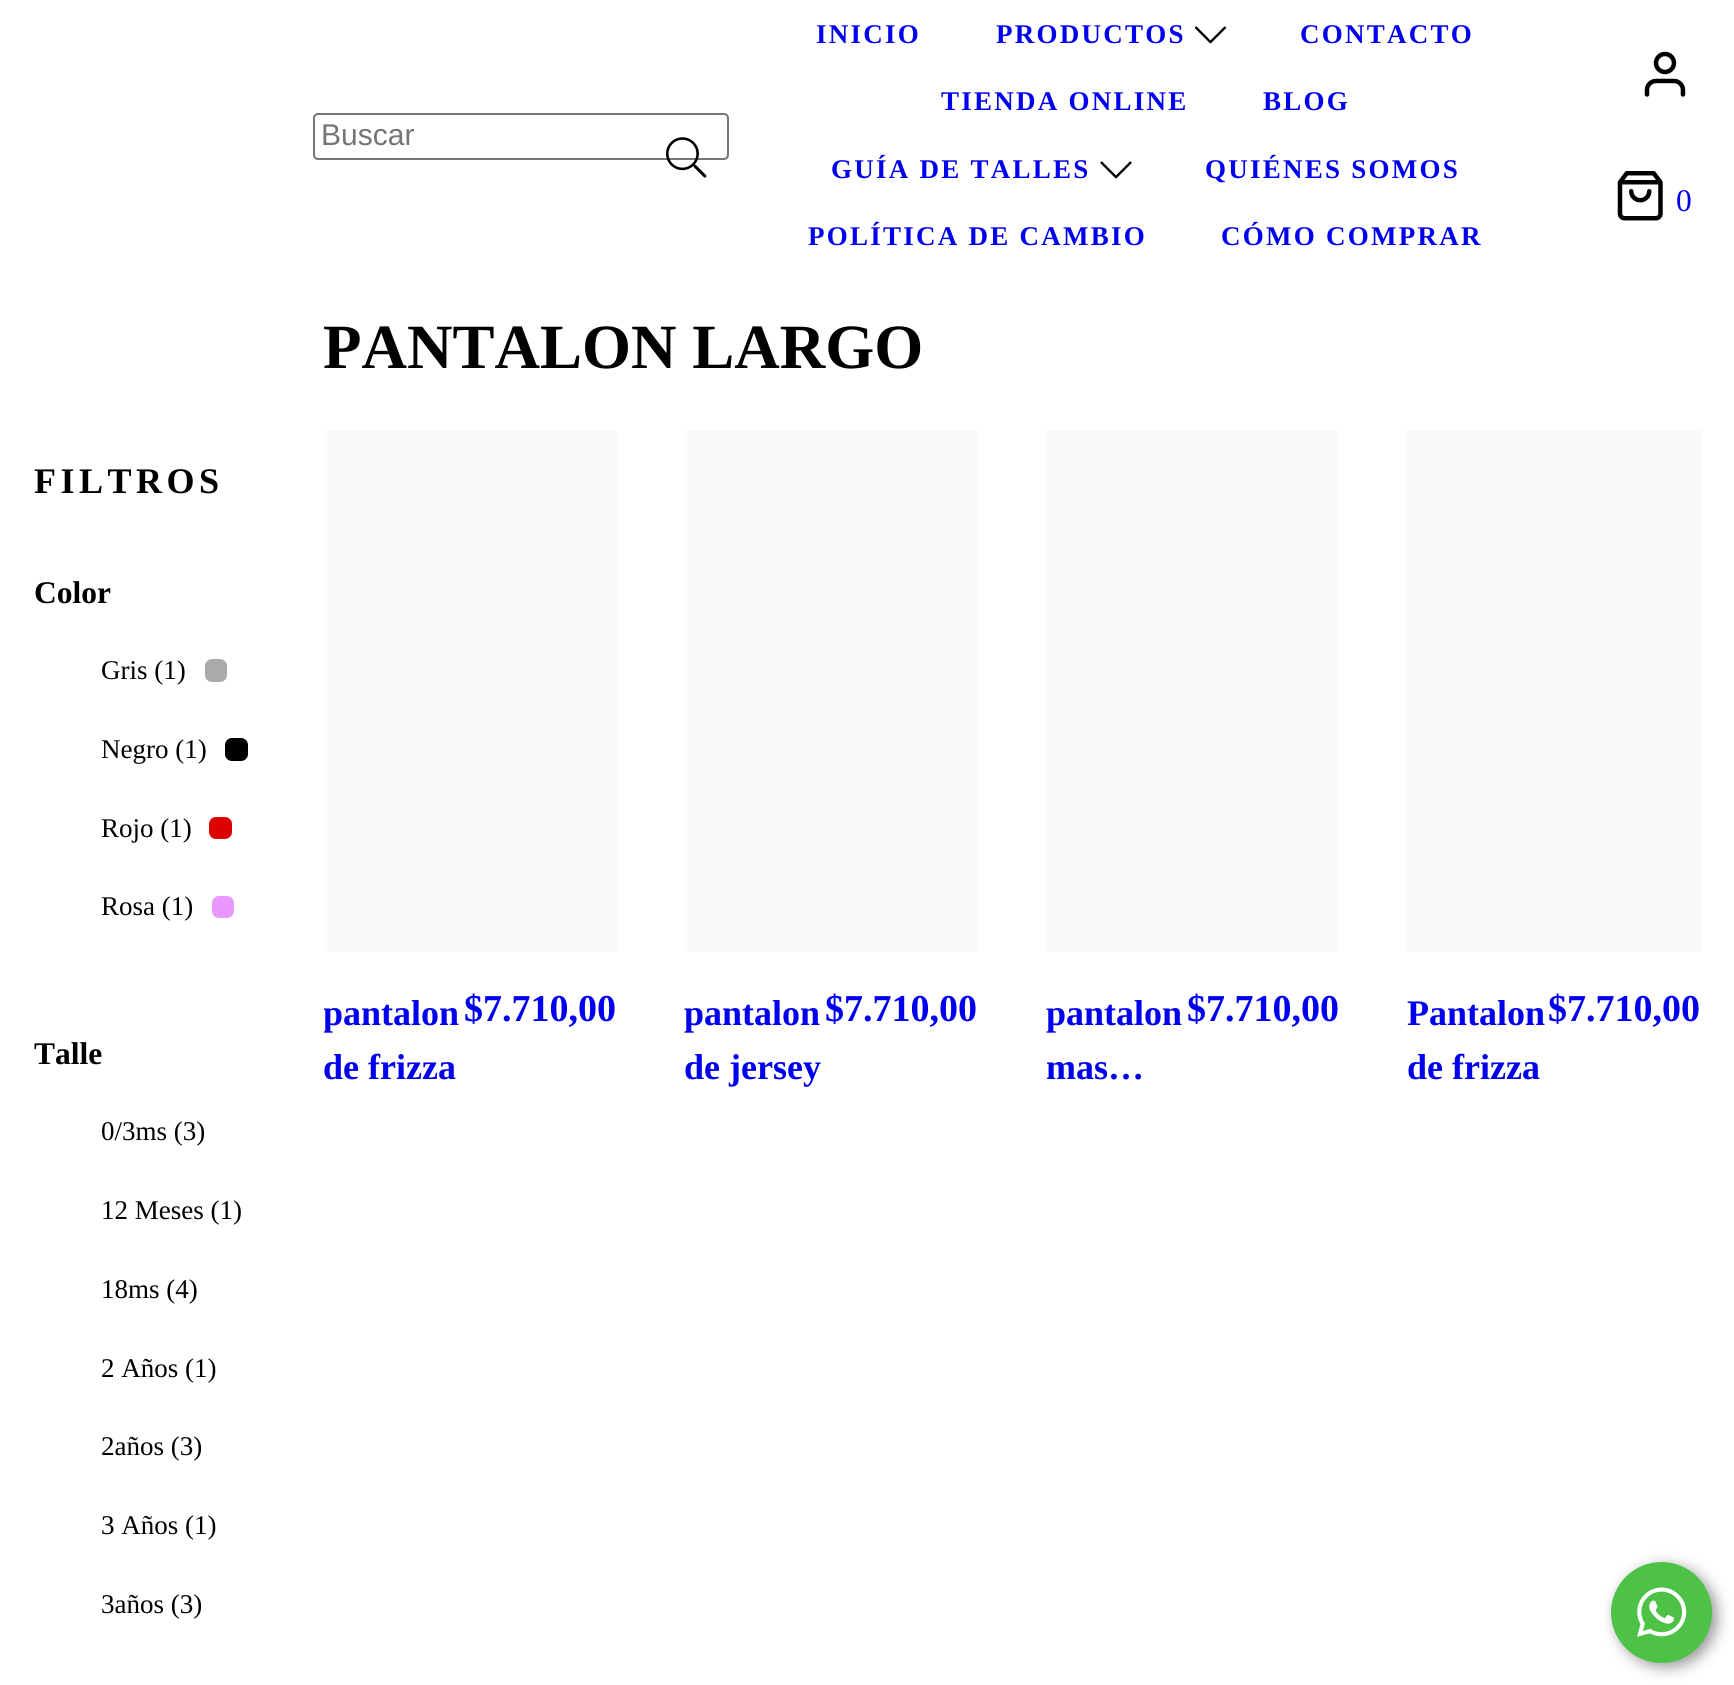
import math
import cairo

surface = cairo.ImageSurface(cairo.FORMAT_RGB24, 1734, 1685)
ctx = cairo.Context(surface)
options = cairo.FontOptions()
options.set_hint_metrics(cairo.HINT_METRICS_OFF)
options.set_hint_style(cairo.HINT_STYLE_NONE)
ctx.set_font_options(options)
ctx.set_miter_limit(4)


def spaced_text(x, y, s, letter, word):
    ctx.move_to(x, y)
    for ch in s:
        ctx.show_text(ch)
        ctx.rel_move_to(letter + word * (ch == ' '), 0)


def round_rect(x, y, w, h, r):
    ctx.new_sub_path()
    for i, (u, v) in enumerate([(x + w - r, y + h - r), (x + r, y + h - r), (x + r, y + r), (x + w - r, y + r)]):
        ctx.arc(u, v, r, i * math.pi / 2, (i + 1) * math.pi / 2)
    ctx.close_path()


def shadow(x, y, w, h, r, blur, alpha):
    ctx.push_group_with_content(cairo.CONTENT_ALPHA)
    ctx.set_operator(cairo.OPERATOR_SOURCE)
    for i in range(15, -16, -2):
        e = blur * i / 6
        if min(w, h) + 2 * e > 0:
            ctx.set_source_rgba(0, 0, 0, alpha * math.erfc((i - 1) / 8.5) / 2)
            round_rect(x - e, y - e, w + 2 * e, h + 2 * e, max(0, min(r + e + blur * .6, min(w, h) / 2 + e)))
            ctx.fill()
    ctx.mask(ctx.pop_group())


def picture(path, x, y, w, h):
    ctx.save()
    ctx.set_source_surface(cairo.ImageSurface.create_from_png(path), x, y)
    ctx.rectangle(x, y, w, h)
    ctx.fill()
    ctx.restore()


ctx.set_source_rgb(1, 1, 1)
ctx.paint()
round_rect(314, 114, 414, 45, 4)
ctx.set_source_rgb(0.463, 0.463, 0.463)
ctx.stroke()
ctx.select_font_face("Liberation Sans")
ctx.set_font_size(30)
ctx.set_source_rgb(0.459, 0.459, 0.459)
ctx.move_to(321, 145)
ctx.show_text("Buscar")
picture("img1.png", 666, 137, 41, 41)
ctx.select_font_face("Liberation Serif", cairo.FONT_SLANT_NORMAL, cairo.FONT_WEIGHT_BOLD)
ctx.set_font_size(27)
ctx.set_source_rgb(0, 0, 0.933)
spaced_text(816, 43, "INICIO", 2.25, 0)
spaced_text(996, 43, "PRODUCTOS", 2.25, 0)
picture("img2.png", 1194, 26, 33, 18)
spaced_text(1300, 43, "CONTACTO", 2.25, 0)
spaced_text(941, 110, "TIENDA ONLINE", 2.25, 0)
spaced_text(1263, 110, "BLOG", 2.25, 0)
spaced_text(831, 178, "GUÍA DE TALLES", 2.25, 0)
picture("img3.png", 1100, 161, 32, 18)
spaced_text(1205, 178, "QUIÉNES SOMOS", 2.25, 0)
spaced_text(808, 245, "POLÍTICA DE CAMBIO", 2.25, 0)
spaced_text(1221, 245, "CÓMO COMPRAR", 2.25, 0)
picture("img4.png", 1644, 51, 42, 46)
picture("img5.png", 1617, 171, 46, 50)
ctx.select_font_face("Liberation Serif")
ctx.set_font_size(31.5)
ctx.move_to(1676, 211)
ctx.show_text("0")
ctx.select_font_face("Liberation Serif", cairo.FONT_SLANT_NORMAL, cairo.FONT_WEIGHT_BOLD)
ctx.set_font_size(36)
ctx.set_source_rgb(0, 0, 0)
spaced_text(34, 493, "FILTROS", 4.5, 0)
ctx.set_font_size(31.5)
ctx.move_to(34, 603)
ctx.show_text("Color")
ctx.select_font_face("Liberation Serif")
ctx.set_font_size(27)
ctx.move_to(101, 679)
ctx.show_text("Gris (1)")
ctx.set_source_rgb(0.667, 0.667, 0.667)
round_rect(205, 659, 22, 23, 7)
ctx.fill()
ctx.set_source_rgb(0, 0, 0)
ctx.move_to(101, 758)
ctx.show_text("Negro (1)")
round_rect(225, 738, 23, 23, 7)
ctx.fill()
ctx.move_to(101, 837)
ctx.show_text("Rojo (1)")
ctx.set_source_rgb(0.863, 0, 0)
round_rect(209, 817, 23, 22, 7)
ctx.fill()
ctx.set_source_rgb(0, 0, 0)
ctx.move_to(101, 915)
ctx.show_text("Rosa (1)")
ctx.set_source_rgb(0.914, 0.596, 1)
round_rect(212, 896, 22, 22, 7)
ctx.fill()
ctx.select_font_face("Liberation Serif", cairo.FONT_SLANT_NORMAL, cairo.FONT_WEIGHT_BOLD)
ctx.set_font_size(31.5)
ctx.set_source_rgb(0, 0, 0)
ctx.move_to(34, 1064)
ctx.show_text("Talle")
ctx.select_font_face("Liberation Serif")
ctx.set_font_size(27)
ctx.move_to(101, 1140)
ctx.show_text("0/3ms (3)")
ctx.move_to(101, 1219)
ctx.show_text("12 Meses (1)")
ctx.move_to(101, 1298)
ctx.show_text("18ms (4)")
ctx.move_to(101, 1377)
ctx.show_text("2 Años (1)")
ctx.move_to(101, 1455)
ctx.show_text("2años (3)")
ctx.move_to(101, 1534)
ctx.show_text("3 Años (1)")
ctx.move_to(101, 1613)
ctx.show_text("3años (3)")
ctx.select_font_face("Liberation Serif", cairo.FONT_SLANT_NORMAL, cairo.FONT_WEIGHT_BOLD)
ctx.set_font_size(63)
ctx.move_to(323, 368)
ctx.show_text("PANTALON LARGO")
ctx.set_source_rgb(0.98, 0.98, 0.98)
ctx.rectangle(324, 430, 293, 522)
ctx.fill()
ctx.save()
ctx.rectangle(324, 988, 140, 108)
ctx.clip()
ctx.set_font_size(36)
ctx.set_source_rgb(0, 0, 0.933)
ctx.move_to(323, 1025)
ctx.show_text("pantalon")
ctx.restore()
ctx.set_font_size(36)
ctx.set_source_rgb(0, 0, 0.933)
ctx.move_to(323, 1079)
ctx.show_text("de frizza")
ctx.set_font_size(38)
ctx.move_to(464, 1021)
ctx.show_text("$7.710,00")
ctx.set_source_rgb(0.98, 0.98, 0.98)
ctx.rectangle(684, 430, 295, 522)
ctx.fill()
ctx.set_font_size(36)
ctx.set_source_rgb(0, 0, 0.933)
ctx.move_to(684, 1025)
ctx.show_text("pantalon")
ctx.move_to(684, 1079)
ctx.show_text("de jersey")
ctx.set_font_size(38)
ctx.move_to(825, 1021)
ctx.show_text("$7.710,00")
ctx.set_source_rgb(0.98, 0.98, 0.98)
ctx.rectangle(1046, 430, 293, 522)
ctx.fill()
ctx.set_font_size(36)
ctx.set_source_rgb(0, 0, 0.933)
ctx.move_to(1046, 1025)
ctx.show_text("pantalon")
ctx.move_to(1046, 1079)
ctx.show_text("mas…")
ctx.set_font_size(38)
ctx.move_to(1187, 1021)
ctx.show_text("$7.710,00")
ctx.set_source_rgb(0.98, 0.98, 0.98)
ctx.rectangle(1406, 430, 295, 522)
ctx.fill()
ctx.set_font_size(36)
ctx.set_source_rgb(0, 0, 0.933)
ctx.move_to(1407, 1025)
ctx.show_text("Pantalon")
ctx.move_to(1407, 1079)
ctx.show_text("de frizza")
ctx.set_font_size(38)
ctx.move_to(1548, 1021)
ctx.show_text("$7.710,00")
ctx.set_source_rgb(0, 0, 0)
shadow(1616, 1566, 101, 101, 50.5, 7, 0.4)
ctx.set_source_rgb(0.302, 0.761, 0.278)
ctx.arc(1661.5, 1612.5, 50.5, 0, 2 * math.pi)
ctx.fill()
picture("img6.png", 1637, 1587, 50, 50)
surface.write_to_png("page.png")
